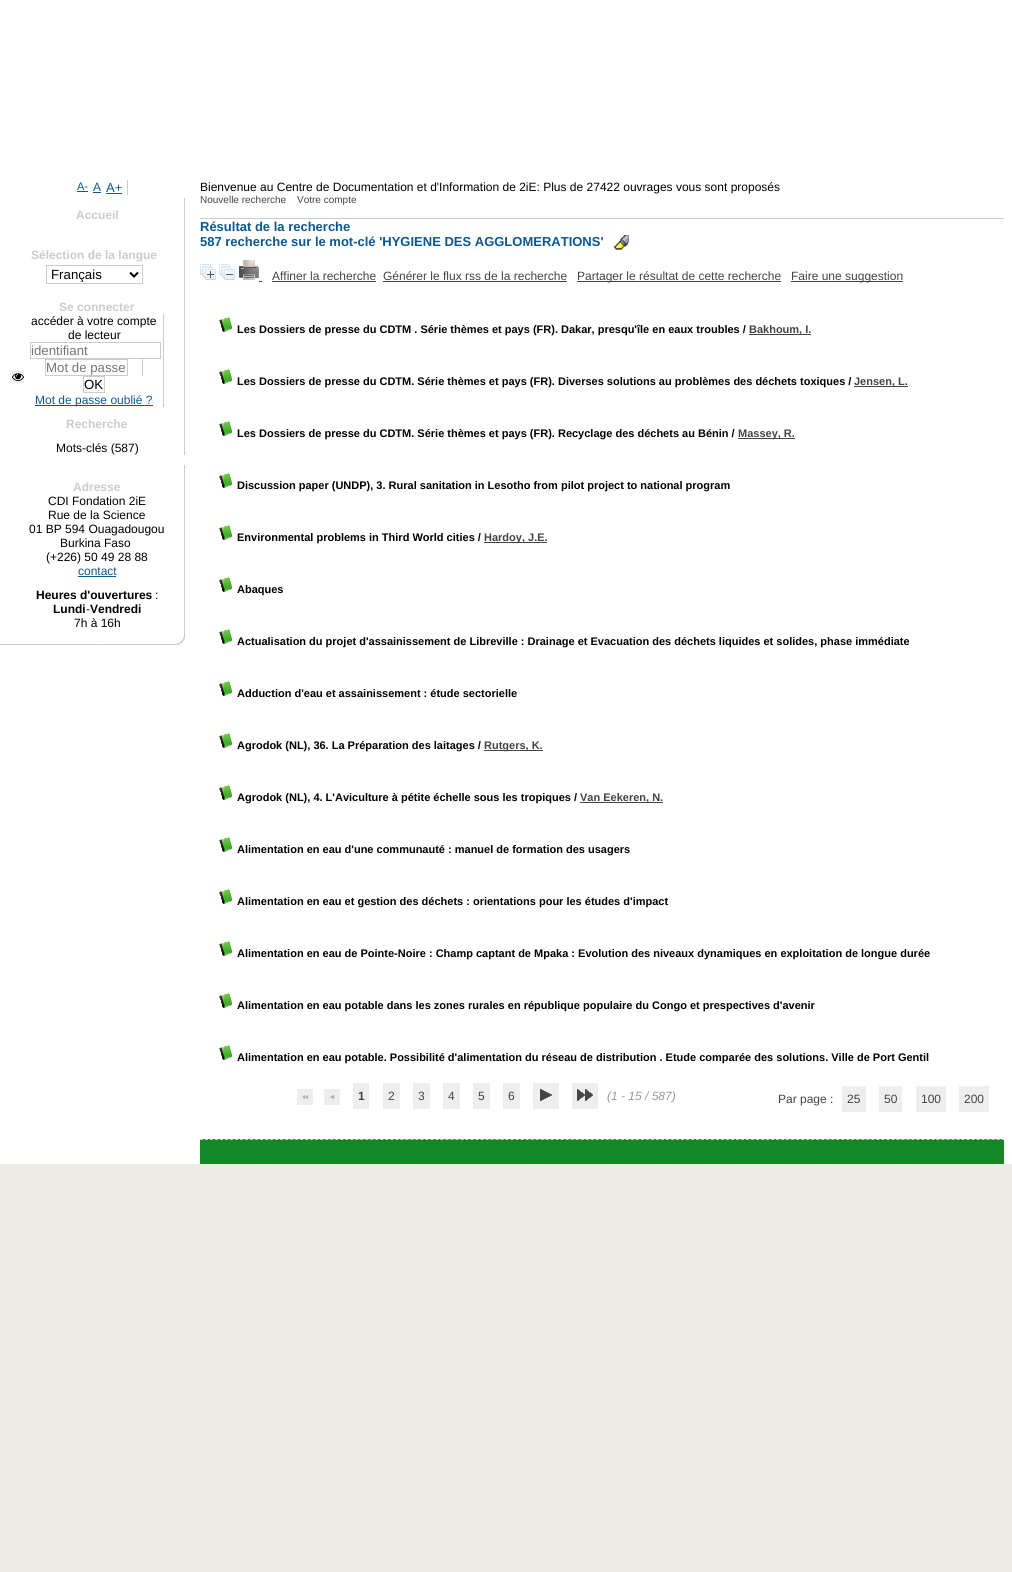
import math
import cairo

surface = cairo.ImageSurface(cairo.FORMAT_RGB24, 1012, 1572)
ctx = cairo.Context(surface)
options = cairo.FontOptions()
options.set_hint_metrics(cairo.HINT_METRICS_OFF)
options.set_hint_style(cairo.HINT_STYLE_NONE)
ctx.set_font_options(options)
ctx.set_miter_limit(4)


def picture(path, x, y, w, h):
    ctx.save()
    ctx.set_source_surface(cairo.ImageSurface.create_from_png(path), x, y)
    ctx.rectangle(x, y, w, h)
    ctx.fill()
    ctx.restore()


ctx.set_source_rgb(0.922, 0.918, 0.902)
ctx.paint()
ctx.set_source_rgb(1, 1, 1)
ctx.rectangle(0, 0, 1012, 1164)
ctx.fill()
picture("img1.png", 0, 630, 185, 15)
ctx.set_source_rgb(0.8, 0.8, 0.8)
ctx.rectangle(127, 180, 1, 15)
ctx.fill()
ctx.select_font_face("Liberation Sans")
ctx.set_font_size(11)
ctx.set_source_rgb(0.043, 0.341, 0.569)
ctx.move_to(77, 190)
ctx.show_text("A-")
ctx.rectangle(77, 191, 11, 1)
ctx.fill()
ctx.set_font_size(12)
ctx.move_to(93, 191)
ctx.show_text("A")
ctx.rectangle(93, 192, 8, 1)
ctx.fill()
ctx.set_font_size(13)
ctx.move_to(106, 192)
ctx.show_text("A+")
ctx.rectangle(106, 193, 16, 1)
ctx.fill()
ctx.set_source_rgb(0.8, 0.8, 0.8)
ctx.rectangle(184, 198, 1, 257)
ctx.fill()
ctx.select_font_face("Liberation Sans", cairo.FONT_SLANT_NORMAL, cairo.FONT_WEIGHT_BOLD)
ctx.set_font_size(12)
ctx.move_to(76, 219)
ctx.show_text("Accueil")
ctx.move_to(31, 259)
ctx.show_text("Sélection de la langue")
ctx.rectangle(46.5, 265.5, 96, 18)
ctx.set_line_width(1)
ctx.stroke()
ctx.new_path()
ctx.move_to(130, 272.5)
ctx.line_to(134, 276.5)
ctx.line_to(138, 272.5)
ctx.set_source_rgb(0, 0, 0)
ctx.set_line_width(2)
ctx.stroke()
ctx.select_font_face("Liberation Sans")
ctx.set_font_size(13.25)
ctx.move_to(51, 279)
ctx.show_text("Français")
ctx.select_font_face("Liberation Sans", cairo.FONT_SLANT_NORMAL, cairo.FONT_WEIGHT_BOLD)
ctx.set_font_size(12)
ctx.set_source_rgb(0.8, 0.8, 0.8)
ctx.move_to(59, 311)
ctx.show_text("Se connecter")
ctx.rectangle(163, 314, 1, 93)
ctx.fill()
ctx.select_font_face("Liberation Sans")
ctx.set_source_rgb(0, 0, 0)
ctx.move_to(31, 325)
ctx.show_text("accéder à votre compte")
ctx.move_to(68, 339)
ctx.show_text("de lecteur")
ctx.rectangle(30.5, 342.5, 130, 16)
ctx.set_source_rgb(0.8, 0.8, 0.8)
ctx.set_line_width(1)
ctx.stroke()
ctx.set_font_size(13.25)
ctx.set_source_rgb(0.459, 0.459, 0.459)
ctx.move_to(31, 355)
ctx.show_text("identifiant")
ctx.set_source_rgb(0.8, 0.8, 0.8)
ctx.rectangle(142, 359, 1, 17)
ctx.fill()
ctx.rectangle(45.5, 359.5, 82, 16)
ctx.stroke()
ctx.set_source_rgb(0.459, 0.459, 0.459)
ctx.move_to(46, 372)
ctx.show_text("Mot de passe")
ctx.set_source_rgb(0.937, 0.937, 0.937)
ctx.rectangle(12, 371, 12, 12)
ctx.fill()
picture("img2.png", 12, 373, 12, 8)
ctx.rectangle(83.5, 376.5, 21, 16)
ctx.set_source_rgb(0.8, 0.8, 0.8)
ctx.stroke()
ctx.set_source_rgb(0, 0, 0)
ctx.move_to(84, 389)
ctx.show_text("OK")
ctx.set_source_rgb(0.043, 0.341, 0.569)
ctx.rectangle(35, 405, 118, 1)
ctx.fill()
ctx.set_font_size(12)
ctx.move_to(35, 404)
ctx.show_text("Mot de passe oublié ?")
ctx.select_font_face("Liberation Sans", cairo.FONT_SLANT_NORMAL, cairo.FONT_WEIGHT_BOLD)
ctx.set_source_rgb(0.8, 0.8, 0.8)
ctx.move_to(66, 428)
ctx.show_text("Recherche")
ctx.select_font_face("Liberation Sans")
ctx.set_source_rgb(0, 0, 0)
ctx.move_to(56, 452)
ctx.show_text("Mots-clés (587)")
ctx.set_source_rgb(0.8, 0.8, 0.8)
ctx.rectangle(184, 465, 1, 165)
ctx.fill()
ctx.select_font_face("Liberation Sans", cairo.FONT_SLANT_NORMAL, cairo.FONT_WEIGHT_BOLD)
ctx.move_to(73, 491)
ctx.show_text("Adresse")
ctx.select_font_face("Liberation Sans")
ctx.set_source_rgb(0, 0, 0)
ctx.move_to(48, 505)
ctx.show_text("CDI Fondation 2iE")
ctx.move_to(48, 519)
ctx.show_text("Rue de la Science")
ctx.move_to(29, 533)
ctx.show_text("01 BP 594 Ouagadougou")
ctx.move_to(60, 547)
ctx.show_text("Burkina Faso")
ctx.move_to(46, 561)
ctx.show_text("(+226) 50 49 28 88")
ctx.set_source_rgb(0.043, 0.341, 0.569)
ctx.move_to(78, 575)
ctx.show_text("contact")
ctx.rectangle(78, 576, 38, 1)
ctx.fill()
ctx.select_font_face("Liberation Sans", cairo.FONT_SLANT_NORMAL, cairo.FONT_WEIGHT_BOLD)
ctx.set_source_rgb(0, 0, 0)
ctx.move_to(36, 599)
ctx.show_text("Heures d'ouvertures")
ctx.select_font_face("Liberation Sans")
ctx.move_to(155, 599)
ctx.show_text(":")
ctx.select_font_face("Liberation Sans", cairo.FONT_SLANT_NORMAL, cairo.FONT_WEIGHT_BOLD)
ctx.move_to(53, 613)
ctx.show_text("Lundi")
ctx.select_font_face("Liberation Sans")
ctx.move_to(86, 613)
ctx.show_text("-")
ctx.select_font_face("Liberation Sans", cairo.FONT_SLANT_NORMAL, cairo.FONT_WEIGHT_BOLD)
ctx.move_to(90, 613)
ctx.show_text("Vendredi")
ctx.select_font_face("Liberation Sans")
ctx.move_to(74, 627)
ctx.show_text("7h à 16h")
ctx.move_to(200, 191)
ctx.show_text("Bienvenue au Centre de Documentation et d'Information de 2iE: Plus de 27422 ouvrages vous sont proposés")
ctx.set_source_rgb(0.8, 0.8, 0.8)
ctx.rectangle(200, 218, 804, 1)
ctx.fill()
ctx.set_font_size(10)
ctx.set_source_rgb(0.267, 0.267, 0.267)
ctx.move_to(200, 203)
ctx.show_text("Nouvelle recherche")
ctx.move_to(297, 203)
ctx.show_text("Votre compte")
ctx.select_font_face("Liberation Sans", cairo.FONT_SLANT_NORMAL, cairo.FONT_WEIGHT_BOLD)
ctx.set_font_size(13)
ctx.set_source_rgb(0.043, 0.341, 0.569)
ctx.move_to(200, 231)
ctx.show_text("Résultat de la recherche")
ctx.move_to(200, 246)
ctx.show_text("587 recherche sur le mot-clé 'HYGIENE DES AGGLOMERATIONS'")
picture("img3.png", 614, 235, 15, 15)
picture("img4.png", 200, 264, 16, 16)
picture("img5.png", 219, 264, 16, 16)
picture("img6.png", 239, 260, 20, 20)
ctx.set_source_rgb(0.267, 0.267, 0.267)
ctx.rectangle(259, 281, 3, 1)
ctx.fill()
ctx.select_font_face("Liberation Sans")
ctx.set_font_size(12)
ctx.move_to(272, 280)
ctx.show_text("Affiner la recherche")
ctx.rectangle(272, 281, 104, 1)
ctx.fill()
ctx.move_to(383, 280)
ctx.show_text("Générer le flux rss de la recherche")
ctx.rectangle(383, 281, 184, 1)
ctx.fill()
ctx.rectangle(577, 281, 204, 1)
ctx.fill()
ctx.move_to(577, 280)
ctx.show_text("Partager le résultat de cette recherche")
ctx.rectangle(791, 281, 112, 1)
ctx.fill()
ctx.move_to(791, 280)
ctx.show_text("Faire une suggestion")
picture("img7.png", 219, 317, 13, 15)
ctx.select_font_face("Liberation Sans", cairo.FONT_SLANT_NORMAL, cairo.FONT_WEIGHT_BOLD)
ctx.set_font_size(11)
ctx.set_source_rgb(0, 0, 0)
ctx.move_to(237, 333)
ctx.show_text("Les Dossiers de presse du CDTM . Série thèmes et pays (FR). Dakar, presqu'île en eaux troubles /")
ctx.set_source_rgb(0.267, 0.267, 0.267)
ctx.rectangle(749, 334, 62, 1)
ctx.fill()
ctx.move_to(749, 333)
ctx.show_text("Bakhoum, I.")
picture("img7.png", 219, 369, 13, 15)
ctx.set_source_rgb(0, 0, 0)
ctx.move_to(237, 385)
ctx.show_text("Les Dossiers de presse du CDTM. Série thèmes et pays (FR). Diverses solutions au problèmes des déchets toxiques /")
ctx.set_source_rgb(0.267, 0.267, 0.267)
ctx.rectangle(854, 386, 54, 1)
ctx.fill()
ctx.move_to(854, 385)
ctx.show_text("Jensen, L.")
picture("img7.png", 219, 421, 13, 15)
ctx.set_source_rgb(0, 0, 0)
ctx.move_to(237, 437)
ctx.show_text("Les Dossiers de presse du CDTM. Série thèmes et pays (FR). Recyclage des déchets au Bénin /")
ctx.set_source_rgb(0.267, 0.267, 0.267)
ctx.rectangle(738, 438, 57, 1)
ctx.fill()
ctx.move_to(738, 437)
ctx.show_text("Massey, R.")
picture("img7.png", 219, 473, 13, 15)
ctx.set_source_rgb(0, 0, 0)
ctx.move_to(237, 489)
ctx.show_text("Discussion paper (UNDP), 3. Rural sanitation in Lesotho from pilot project to national program")
picture("img7.png", 219, 525, 13, 15)
ctx.move_to(237, 541)
ctx.show_text("Environmental problems in Third World cities /")
ctx.set_source_rgb(0.267, 0.267, 0.267)
ctx.rectangle(484, 542, 63, 1)
ctx.fill()
ctx.move_to(484, 541)
ctx.show_text("Hardoy, J.E.")
picture("img7.png", 219, 577, 13, 15)
ctx.set_source_rgb(0, 0, 0)
ctx.move_to(237, 593)
ctx.show_text("Abaques")
picture("img7.png", 219, 629, 13, 15)
ctx.move_to(237, 645)
ctx.show_text("Actualisation du projet d'assainissement de Libreville : Drainage et Evacuation des déchets liquides et solides, phase immédiate")
picture("img7.png", 219, 681, 13, 15)
ctx.move_to(237, 697)
ctx.show_text("Adduction d'eau et assainissement : étude sectorielle")
picture("img7.png", 219, 733, 13, 15)
ctx.move_to(237, 749)
ctx.show_text("Agrodok (NL), 36. La Préparation des laitages /")
ctx.set_source_rgb(0.267, 0.267, 0.267)
ctx.rectangle(484, 750, 59, 1)
ctx.fill()
ctx.move_to(484, 749)
ctx.show_text("Rutgers, K.")
picture("img7.png", 219, 785, 13, 15)
ctx.set_source_rgb(0, 0, 0)
ctx.move_to(237, 801)
ctx.show_text("Agrodok (NL), 4. L'Aviculture à pétite échelle sous les tropiques /")
ctx.set_source_rgb(0.267, 0.267, 0.267)
ctx.rectangle(580, 802, 83, 1)
ctx.fill()
ctx.move_to(580, 801)
ctx.show_text("Van Eekeren, N.")
picture("img7.png", 219, 837, 13, 15)
ctx.set_source_rgb(0, 0, 0)
ctx.move_to(237, 853)
ctx.show_text("Alimentation en eau d'une communauté : manuel de formation des usagers")
picture("img7.png", 219, 889, 13, 15)
ctx.move_to(237, 905)
ctx.show_text("Alimentation en eau et gestion des déchets : orientations pour les études d'impact")
picture("img7.png", 219, 941, 13, 15)
ctx.move_to(237, 957)
ctx.show_text("Alimentation en eau de Pointe-Noire : Champ captant de Mpaka : Evolution des niveaux dynamiques en exploitation de longue durée")
picture("img7.png", 219, 993, 13, 15)
ctx.move_to(237, 1009)
ctx.show_text("Alimentation en eau potable dans les zones rurales en république populaire du Congo et prespectives d'avenir")
picture("img7.png", 219, 1045, 13, 15)
ctx.move_to(237, 1061)
ctx.show_text("Alimentation en eau potable. Possibilité d'alimentation du réseau de distribution . Etude comparée des solutions. Ville de Port Gentil")
ctx.set_source_rgb(0.933, 0.933, 0.933)
ctx.rectangle(297, 1089, 16, 16)
ctx.fill()
picture("img8.png", 302, 1095, 6, 5)
ctx.rectangle(324, 1089, 16, 16)
ctx.fill()
picture("img9.png", 330, 1095, 5, 5)
ctx.rectangle(353, 1083, 16, 26)
ctx.fill()
ctx.set_font_size(12)
ctx.set_source_rgb(0.267, 0.267, 0.267)
ctx.move_to(358, 1100)
ctx.show_text("1")
ctx.set_source_rgb(0.933, 0.933, 0.933)
ctx.rectangle(383, 1083, 17, 26)
ctx.fill()
ctx.select_font_face("Liberation Sans")
ctx.set_source_rgb(0.267, 0.267, 0.267)
ctx.move_to(388, 1100)
ctx.show_text("2")
ctx.set_source_rgb(0.933, 0.933, 0.933)
ctx.rectangle(413, 1083, 17, 26)
ctx.fill()
ctx.set_source_rgb(0.267, 0.267, 0.267)
ctx.move_to(418, 1100)
ctx.show_text("3")
ctx.set_source_rgb(0.933, 0.933, 0.933)
ctx.rectangle(443, 1083, 17, 26)
ctx.fill()
ctx.set_source_rgb(0.267, 0.267, 0.267)
ctx.move_to(448, 1100)
ctx.show_text("4")
ctx.set_source_rgb(0.933, 0.933, 0.933)
ctx.rectangle(473, 1083, 17, 26)
ctx.fill()
ctx.set_source_rgb(0.267, 0.267, 0.267)
ctx.move_to(478, 1100)
ctx.show_text("5")
ctx.set_source_rgb(0.933, 0.933, 0.933)
ctx.rectangle(503, 1083, 17, 26)
ctx.fill()
ctx.set_source_rgb(0.267, 0.267, 0.267)
ctx.move_to(508, 1100)
ctx.show_text("6")
ctx.set_source_rgb(0.933, 0.933, 0.933)
ctx.rectangle(533, 1083, 26, 26)
ctx.fill()
picture("img10.png", 540, 1089, 12, 12)
ctx.rectangle(572, 1083, 26, 26)
ctx.fill()
picture("img11.png", 577, 1089, 16, 12)
ctx.select_font_face("Liberation Sans", cairo.FONT_SLANT_ITALIC)
ctx.set_source_rgb(0.6, 0.6, 0.6)
ctx.move_to(607, 1100)
ctx.show_text("(1 - 15 / 587)")
ctx.select_font_face("Liberation Sans")
ctx.set_source_rgb(0.267, 0.267, 0.267)
ctx.move_to(778, 1103)
ctx.show_text("Par page :")
ctx.set_source_rgb(0.933, 0.933, 0.933)
ctx.rectangle(842, 1086, 24, 26)
ctx.fill()
ctx.set_source_rgb(0.267, 0.267, 0.267)
ctx.move_to(847, 1103)
ctx.show_text("25")
ctx.set_source_rgb(0.933, 0.933, 0.933)
ctx.rectangle(879, 1086, 23, 26)
ctx.fill()
ctx.set_source_rgb(0.267, 0.267, 0.267)
ctx.move_to(884, 1103)
ctx.show_text("50")
ctx.set_source_rgb(0.933, 0.933, 0.933)
ctx.rectangle(916, 1086, 30, 26)
ctx.fill()
ctx.set_source_rgb(0.267, 0.267, 0.267)
ctx.move_to(921, 1103)
ctx.show_text("100")
ctx.set_source_rgb(0.933, 0.933, 0.933)
ctx.rectangle(959, 1086, 30, 26)
ctx.fill()
ctx.set_source_rgb(0.267, 0.267, 0.267)
ctx.move_to(964, 1103)
ctx.show_text("200")
ctx.set_source_rgb(0.082, 0.529, 0.153)
ctx.rectangle(200, 1139, 804, 25)
ctx.fill()
ctx.new_path()
ctx.move_to(200, 1139.5)
ctx.line_to(1004, 1139.5)
ctx.set_source_rgb(0.8, 0.8, 0.8)
ctx.set_dash([3, 2.01])
ctx.stroke()
surface.write_to_png("page.png")
